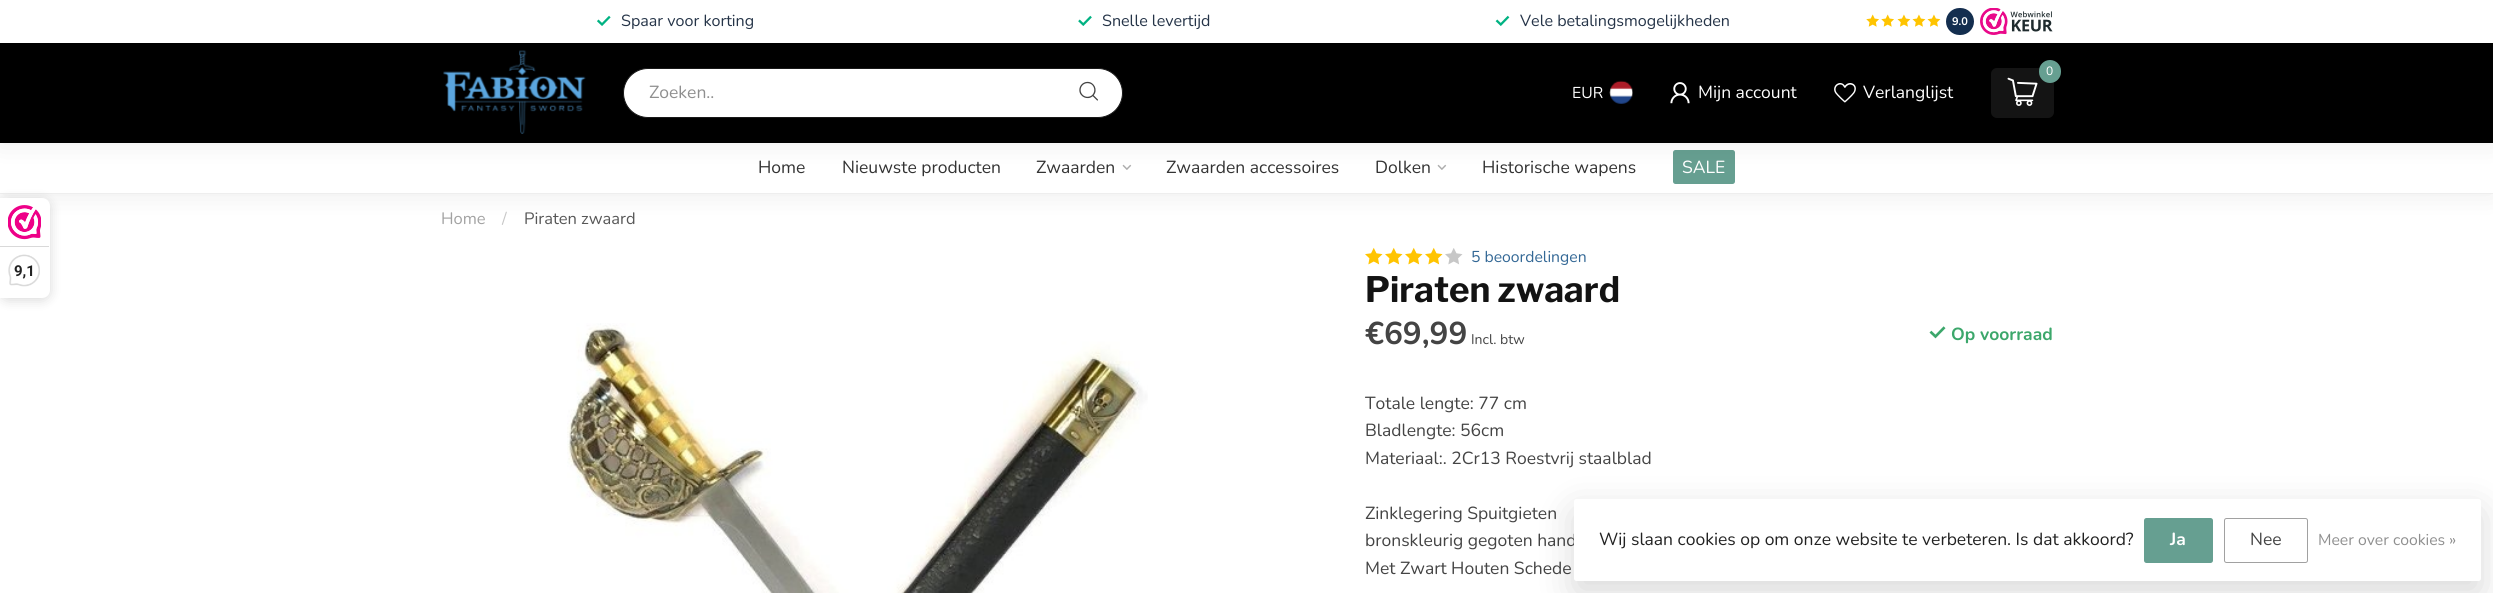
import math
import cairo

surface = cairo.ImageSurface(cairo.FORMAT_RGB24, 2493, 593)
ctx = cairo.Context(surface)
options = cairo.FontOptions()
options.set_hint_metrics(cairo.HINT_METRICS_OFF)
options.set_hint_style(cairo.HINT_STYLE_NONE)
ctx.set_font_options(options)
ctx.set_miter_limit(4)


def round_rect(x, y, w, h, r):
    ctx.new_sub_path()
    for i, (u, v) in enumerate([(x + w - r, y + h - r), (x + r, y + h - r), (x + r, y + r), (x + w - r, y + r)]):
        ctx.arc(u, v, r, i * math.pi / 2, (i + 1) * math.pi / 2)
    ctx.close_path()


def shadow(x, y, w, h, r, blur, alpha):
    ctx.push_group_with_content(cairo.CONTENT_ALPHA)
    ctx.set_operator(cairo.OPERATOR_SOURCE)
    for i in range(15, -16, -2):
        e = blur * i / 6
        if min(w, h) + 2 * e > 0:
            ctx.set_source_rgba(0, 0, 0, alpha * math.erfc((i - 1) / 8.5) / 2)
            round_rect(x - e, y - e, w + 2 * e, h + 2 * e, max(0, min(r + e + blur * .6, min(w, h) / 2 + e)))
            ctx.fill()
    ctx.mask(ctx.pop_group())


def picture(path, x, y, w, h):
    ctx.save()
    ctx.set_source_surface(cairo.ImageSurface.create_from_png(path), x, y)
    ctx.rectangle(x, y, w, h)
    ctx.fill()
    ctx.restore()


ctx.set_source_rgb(1, 1, 1)
ctx.paint()
ctx.set_source_rgb(0, 0, 0)
shadow(0, 143, 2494, 51, 0, 14, 0.08)
ctx.set_source_rgb(1, 1, 1)
ctx.rectangle(0, 143, 2493, 50)
ctx.fill()
picture("img13.png", 1122, 164, 10, 6)
picture("img13.png", 1437, 164, 10, 6)
ctx.set_source_rgb(0.4, 0.624, 0.569)
round_rect(1673, 150, 62, 34, 2.5)
ctx.fill()
ctx.set_source_rgb(0, 0, 0)
shadow(0, 0, 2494, 143, 0, 14, 0.08)
ctx.set_source_rgb(0, 0, 0)
ctx.rectangle(0, 43, 2493, 100)
ctx.fill()
ctx.set_source_rgb(1, 1, 1)
ctx.rectangle(0, 0, 2493, 43)
ctx.fill()
picture("img1.png", 597, 15, 14, 11)
ctx.select_font_face("Nunito")
ctx.set_font_size(16.1)
ctx.set_source_rgb(0.145, 0.204, 0.282)
ctx.move_to(621, 26)
ctx.show_text("Spaar voor korting")
picture("img2.png", 1078, 15, 14, 11)
ctx.move_to(1102, 26)
ctx.show_text("Snelle levertijd")
picture("img3.png", 1495, 15, 15, 11)
ctx.move_to(1520, 26)
ctx.show_text("Vele betalingsmogelijkheden")
picture("img4.png", 1866, 14, 13, 13)
picture("img4.png", 1881, 14, 13, 13)
picture("img5.png", 1897, 14, 14, 13)
picture("img5.png", 1912, 14, 14, 13)
picture("img5.png", 1927, 14, 14, 13)
ctx.set_source_rgb(0.082, 0.18, 0.31)
round_rect(1946, 8, 28, 27, 13.5)
ctx.fill()
ctx.select_font_face("Nunito", cairo.FONT_SLANT_NORMAL, cairo.FONT_WEIGHT_BOLD)
ctx.set_font_size(11)
ctx.set_source_rgb(1, 1, 1)
ctx.move_to(1952, 25)
ctx.show_text("9.0")
picture("img6.png", 1980, 8, 73, 27)
picture("img7.png", 443, 50, 143, 84)
round_rect(623.5, 68.5, 499, 49, 24.5)
ctx.fill_preserve()
ctx.set_source_rgb(0.098, 0.098, 0.098)
ctx.set_line_width(1)
ctx.stroke()
ctx.select_font_face("Nunito")
ctx.set_font_size(17.5)
ctx.set_source_rgb(0.561, 0.561, 0.561)
ctx.move_to(649, 98)
ctx.show_text("Zoeken..")
picture("img8.png", 1079, 81, 19, 20)
ctx.set_source_rgb(0.082, 0.082, 0.082)
round_rect(1991, 68, 63, 50, 6)
ctx.fill()
ctx.set_source_rgb(0.4, 0.624, 0.569)
round_rect(2039, 60, 22, 23, 11)
ctx.fill()
ctx.set_font_size(12)
ctx.set_source_rgb(1, 1, 1)
ctx.move_to(2046, 75)
ctx.show_text("0")
picture("img9.png", 2007, 77, 31, 29)
ctx.set_font_size(15.75)
ctx.move_to(1572, 98)
ctx.show_text("EUR")
picture("img10.png", 1609, 80, 24, 24)
picture("img11.png", 1670, 82, 20, 22)
ctx.set_font_size(17.5)
ctx.move_to(1698, 98)
ctx.show_text("Mijn account")
picture("img12.png", 1834, 83, 22, 20)
ctx.move_to(1863, 98)
ctx.show_text("Verlanglijst")
ctx.set_source_rgb(0.933, 0.933, 0.933)
ctx.rectangle(0, 193, 2493, 1)
ctx.fill()
ctx.set_source_rgb(0.2, 0.2, 0.2)
ctx.move_to(758, 173)
ctx.show_text("Home")
ctx.move_to(842, 173)
ctx.show_text("Nieuwste producten")
ctx.move_to(1036, 173)
ctx.show_text("Zwaarden")
ctx.move_to(1166, 173)
ctx.show_text("Zwaarden accessoires")
ctx.move_to(1375, 173)
ctx.show_text("Dolken")
ctx.move_to(1482, 173)
ctx.show_text("Historische wapens")
ctx.set_source_rgb(1, 1, 1)
ctx.move_to(1682, 173)
ctx.show_text("SALE")
ctx.set_font_size(16.5)
ctx.set_source_rgb(0.635, 0.635, 0.635)
ctx.move_to(441, 224)
ctx.show_text("Home")
ctx.set_source_rgb(0.78, 0.78, 0.78)
ctx.move_to(502, 224)
ctx.show_text("/")
ctx.set_source_rgb(0.341, 0.341, 0.341)
ctx.move_to(524, 224)
ctx.show_text("Piraten zwaard")
ctx.set_source_rgb(0, 0, 0)
shadow(0, 200, 50, 100, 8, 6, 0.15)
ctx.set_source_rgb(1, 1, 1)
ctx.new_path()
ctx.move_to(0, 198)
ctx.line_to(42, 198)
ctx.curve_to(46.5, 198, 50, 201.5, 50, 206)
ctx.line_to(50, 290)
ctx.curve_to(50, 294.5, 46.5, 298, 42, 298)
ctx.line_to(0, 298)
ctx.close_path()
ctx.fill()
picture("img14.png", 8, 205, 33, 35)
ctx.set_source_rgb(0.851, 0.851, 0.851)
ctx.rectangle(0, 246, 49, 1)
ctx.fill()
picture("img15.png", 8, 254, 32, 33)
ctx.select_font_face("Roboto", cairo.FONT_SLANT_NORMAL, cairo.FONT_WEIGHT_BOLD)
ctx.set_font_size(15)
ctx.set_source_rgb(0.133, 0.133, 0.133)
ctx.move_to(14, 276)
ctx.show_text("9,1")
picture("img16.png", 567, 323, 581, 270)
picture("img17.png", 1365, 247, 18, 18)
picture("img17.png", 1385, 247, 18, 18)
picture("img17.png", 1405, 247, 18, 18)
picture("img17.png", 1425, 247, 18, 18)
picture("img18.png", 1445, 248, 18, 17)
ctx.select_font_face("Nunito")
ctx.set_font_size(15.75)
ctx.set_source_rgb(0.196, 0.404, 0.584)
ctx.move_to(1471, 262)
ctx.show_text("5 beoordelingen")
ctx.select_font_face("Libre Franklin", cairo.FONT_SLANT_NORMAL, cairo.FONT_WEIGHT_BOLD)
ctx.set_font_size(35)
ctx.set_source_rgb(0.075, 0.075, 0.075)
ctx.move_to(1365, 302)
ctx.show_text("Piraten zwaard")
ctx.select_font_face("Nunito", cairo.FONT_SLANT_NORMAL, cairo.FONT_WEIGHT_BOLD)
ctx.set_font_size(31.5)
ctx.set_source_rgb(0.267, 0.267, 0.267)
ctx.move_to(1365, 344)
ctx.show_text("€69,99")
ctx.select_font_face("Nunito")
ctx.set_font_size(14)
ctx.move_to(1471, 344)
ctx.show_text("Incl. btw")
picture("img19.png", 1929, 326, 17, 13)
ctx.select_font_face("Nunito", cairo.FONT_SLANT_NORMAL, cairo.FONT_WEIGHT_BOLD)
ctx.set_font_size(17.5)
ctx.set_source_rgb(0.235, 0.655, 0.42)
ctx.move_to(1951, 340)
ctx.show_text("Op voorraad")
ctx.select_font_face("Nunito")
ctx.set_source_rgb(0.267, 0.267, 0.267)
ctx.move_to(1365, 409)
ctx.show_text("Totale lengte: 77 cm")
ctx.move_to(1365, 436)
ctx.show_text("Bladlengte: 56cm")
ctx.move_to(1365, 464)
ctx.show_text("Materiaal:. 2Cr13 Roestvrij staalblad")
ctx.move_to(1365, 519)
ctx.show_text("Zinklegering Spuitgieten")
ctx.move_to(1365, 546)
ctx.show_text("bronskleurig gegoten hand")
ctx.move_to(1365, 574)
ctx.show_text("Met Zwart Houten Schede")
ctx.set_source_rgb(0, 0, 0)
shadow(1574, 511, 907, 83, 2.5, 19, 0.15)
ctx.set_source_rgb(1, 1, 1)
round_rect(1574, 499, 907, 82, 2.5)
ctx.fill()
ctx.set_source_rgb(0.133, 0.133, 0.133)
ctx.move_to(1599, 545)
ctx.show_text("Wij slaan cookies op om onze website te verbeteren. Is dat akkoord?")
ctx.set_source_rgb(0.4, 0.624, 0.569)
round_rect(2144, 518, 69, 45, 2.5)
ctx.fill()
ctx.select_font_face("Nunito", cairo.FONT_SLANT_NORMAL, cairo.FONT_WEIGHT_BOLD)
ctx.set_source_rgb(1, 1, 1)
ctx.move_to(2170, 545)
ctx.show_text("Ja")
round_rect(2224.5, 518.5, 83, 44, 2)
ctx.set_source_rgb(0.631, 0.631, 0.631)
ctx.stroke()
ctx.select_font_face("Nunito")
ctx.set_source_rgb(0.267, 0.267, 0.267)
ctx.move_to(2250, 545)
ctx.show_text("Nee")
ctx.set_font_size(15.75)
ctx.set_source_rgb(0.561, 0.561, 0.561)
ctx.move_to(2318, 545)
ctx.show_text("Meer over cookies »")
surface.write_to_png("page.png")
